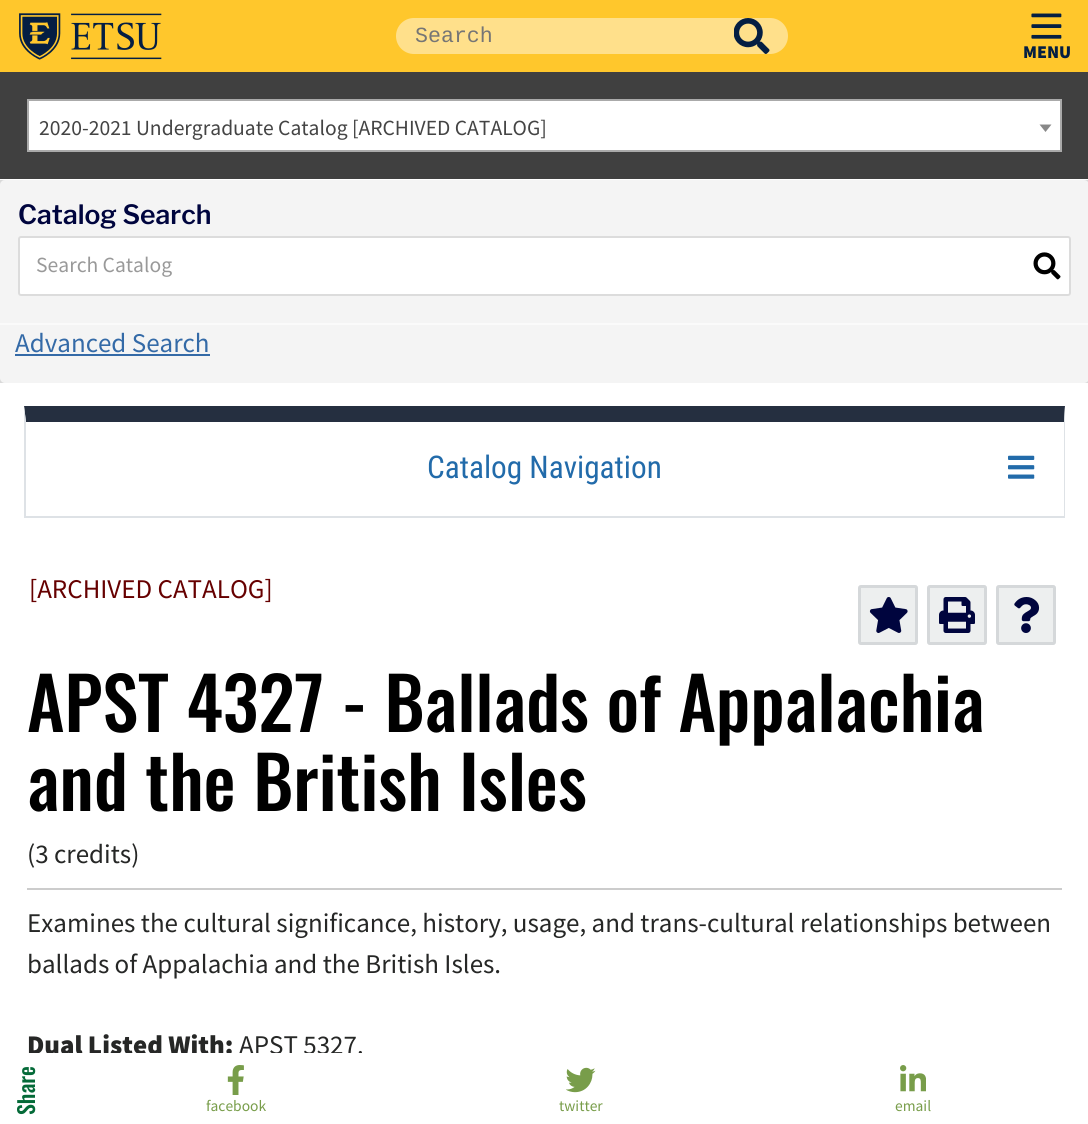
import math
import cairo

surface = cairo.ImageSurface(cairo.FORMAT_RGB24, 1088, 1124)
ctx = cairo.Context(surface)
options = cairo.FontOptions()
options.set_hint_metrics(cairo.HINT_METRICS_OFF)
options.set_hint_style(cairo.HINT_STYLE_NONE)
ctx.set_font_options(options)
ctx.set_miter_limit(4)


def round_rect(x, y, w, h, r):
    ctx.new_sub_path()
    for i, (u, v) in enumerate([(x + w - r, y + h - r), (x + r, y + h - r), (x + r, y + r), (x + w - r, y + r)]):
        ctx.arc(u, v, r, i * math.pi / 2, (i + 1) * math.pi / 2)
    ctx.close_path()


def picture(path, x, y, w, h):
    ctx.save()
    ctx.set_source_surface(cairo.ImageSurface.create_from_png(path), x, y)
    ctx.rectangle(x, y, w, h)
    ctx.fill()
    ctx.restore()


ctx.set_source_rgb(1, 1, 1)
ctx.paint()
ctx.set_source_rgb(1, 0.78, 0.173)
ctx.rectangle(0, 0, 1088, 72)
ctx.fill()
picture("img1.png", 19, 13, 143, 47)
ctx.set_source_rgb(1, 0.878, 0.545)
ctx.new_path()
ctx.move_to(414, 18)
ctx.line_to(716, 18)
ctx.line_to(716, 54)
ctx.line_to(414, 54)
ctx.curve_to(404, 54, 396, 46, 396, 36)
ctx.curve_to(396, 26, 404, 18, 414, 18)
ctx.close_path()
ctx.fill()
ctx.select_font_face("Liberation Mono")
ctx.set_font_size(21.6)
ctx.set_source_rgb(0.459, 0.459, 0.459)
ctx.move_to(415, 42)
ctx.show_text("Search")
ctx.set_source_rgb(1, 0.878, 0.545)
ctx.new_path()
ctx.move_to(716, 18)
ctx.line_to(770, 18)
ctx.curve_to(780, 18, 788, 26, 788, 36)
ctx.curve_to(788, 46, 780, 54, 770, 54)
ctx.line_to(716, 54)
ctx.close_path()
ctx.fill()
picture("img2.png", 734, 18, 36, 36)
picture("img3.png", 1031, 13, 31, 26)
ctx.select_font_face("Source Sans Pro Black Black")
ctx.set_font_size(18)
ctx.set_source_rgb(0.016, 0.118, 0.259)
ctx.move_to(1023, 58)
ctx.show_text("MENU")
ctx.set_source_rgb(0.251, 0.251, 0.251)
ctx.rectangle(0, 72, 1088, 107)
ctx.fill()
ctx.set_source_rgb(1, 1, 1)
ctx.rectangle(28, 100, 1033, 51)
ctx.fill_preserve()
ctx.set_source_rgb(0.667, 0.667, 0.667)
ctx.stroke()
ctx.select_font_face("Source Sans Pro")
ctx.set_font_size(21.6)
ctx.set_source_rgb(0.267, 0.267, 0.267)
ctx.move_to(39, 135)
ctx.show_text("2020-2021 Undergraduate Catalog [ARCHIVED CATALOG]")
ctx.set_source_rgb(0.533, 0.533, 0.533)
ctx.new_path()
ctx.move_to(1039.5, 124.5)
ctx.line_to(1051.5, 124.5)
ctx.line_to(1045.5, 132)
ctx.close_path()
ctx.fill()
ctx.set_source_rgb(0.851, 0.851, 0.851)
ctx.rectangle(0, 180, 1088, 203)
ctx.fill()
ctx.set_source_rgb(0.957, 0.957, 0.957)
round_rect(0, 180, 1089, 203, 5)
ctx.fill()
ctx.select_font_face("Libre Franklin SemiBold")
ctx.set_font_size(26.5)
ctx.set_source_rgb(0, 0.02, 0.243)
ctx.move_to(18, 224)
ctx.show_text("Catalog Search")
ctx.set_source_rgb(1, 1, 1)
round_rect(19, 237, 1051, 58, 2)
ctx.fill_preserve()
ctx.set_source_rgb(0.863, 0.863, 0.863)
ctx.stroke()
ctx.select_font_face("Source Sans Pro")
ctx.set_font_size(21.6)
ctx.set_source_rgb(0.6, 0.6, 0.6)
ctx.move_to(36, 272)
ctx.show_text("Search Catalog")
picture("img4.png", 1033, 252, 28, 28)
ctx.set_source_rgb(0.98, 0.98, 0.98)
ctx.rectangle(0, 323, 1088, 2)
ctx.fill()
ctx.set_font_size(27)
ctx.set_source_rgb(0.204, 0.416, 0.655)
ctx.move_to(15, 352)
ctx.show_text("Advanced Search")
ctx.rectangle(15, 354, 195, 2)
ctx.fill()
ctx.set_source_rgb(0.145, 0.184, 0.251)
ctx.new_path()
ctx.move_to(24, 406)
ctx.line_to(1065, 406)
ctx.line_to(1064, 422)
ctx.line_to(26, 422)
ctx.close_path()
ctx.fill()
ctx.set_source_rgb(0.871, 0.886, 0.902)
ctx.new_path()
ctx.move_to(1065, 406)
ctx.line_to(1065, 518)
ctx.line_to(1064, 516)
ctx.line_to(1064, 422)
ctx.close_path()
ctx.fill()
ctx.rectangle(24, 516, 1041, 2)
ctx.fill()
ctx.new_path()
ctx.move_to(24, 518)
ctx.line_to(24, 406)
ctx.line_to(26, 422)
ctx.line_to(26, 516)
ctx.close_path()
ctx.fill()
ctx.select_font_face("Roboto Condensed")
ctx.set_font_size(31.25)
ctx.set_source_rgb(0.133, 0.42, 0.667)
ctx.move_to(427, 478)
ctx.show_text("Catalog Navigation")
picture("img5.png", 1008, 455, 27, 24)
ctx.select_font_face("Source Sans Pro")
ctx.set_font_size(27)
ctx.set_source_rgb(0.4, 0, 0)
ctx.move_to(29, 598)
ctx.show_text("[ARCHIVED CATALOG]")
ctx.set_source_rgb(0.929, 0.937, 0.937)
round_rect(858, 585, 60, 60, 3)
ctx.fill()
round_rect(859.5, 586.5, 57, 57, 1.5)
ctx.set_source_rgba(0.827, 0.839, 0.847, 0.9)
ctx.set_line_width(3)
ctx.stroke()
picture("img6.png", 869, 597, 39, 36)
ctx.set_source_rgb(0.929, 0.937, 0.937)
round_rect(927, 585, 60, 60, 3)
ctx.fill()
round_rect(928.5, 586.5, 57, 57, 1.5)
ctx.set_source_rgba(0.827, 0.839, 0.847, 0.9)
ctx.stroke()
picture("img7.png", 939, 597, 36, 36)
ctx.set_source_rgb(0.929, 0.937, 0.937)
round_rect(996, 585, 60, 60, 3)
ctx.fill()
round_rect(997.5, 586.5, 57, 57, 1.5)
ctx.set_source_rgba(0.827, 0.839, 0.847, 0.9)
ctx.stroke()
picture("img8.png", 1014, 597, 26, 36)
ctx.select_font_face("Oswald Medium")
ctx.set_font_size(72)
ctx.set_source_rgb(0, 0, 0)
ctx.move_to(27, 732)
ctx.show_text("APST 4327 - Ballads of Appalachia")
ctx.move_to(27, 811)
ctx.show_text("and the British Isles")
ctx.select_font_face("Source Sans Pro")
ctx.set_font_size(27)
ctx.set_source_rgb(0.149, 0.153, 0.149)
ctx.move_to(27, 863)
ctx.show_text("(3 credits)")
ctx.set_source_rgb(0.8, 0.8, 0.8)
ctx.rectangle(27, 888, 1035, 2)
ctx.fill()
ctx.set_source_rgb(0.149, 0.153, 0.149)
ctx.move_to(27, 932)
ctx.show_text("Examines the cultural significance, history, usage, and trans-cultural relationships between")
ctx.move_to(27, 973)
ctx.show_text("ballads of Appalachia and the British Isles.")
ctx.select_font_face("Source Sans Pro Black Black")
ctx.move_to(27, 1054)
ctx.show_text("Dual Listed With:")
ctx.select_font_face("Source Sans Pro")
ctx.move_to(239, 1054)
ctx.show_text("APST 5327.")
ctx.set_source_rgb(1, 1, 1)
ctx.rectangle(28, 1053, 334, 2)
ctx.fill()
ctx.select_font_face("Oswald Medium")
ctx.set_font_size(22)
ctx.set_source_rgb(0.016, 0.416, 0.22)
ctx.save()
ctx.translate(35, 1115)
ctx.rotate(-90 * math.pi / 180)
ctx.move_to(0, 0)
ctx.show_text("Share")
ctx.restore()
picture("img9.png", 227, 1065, 17, 30)
ctx.select_font_face("Source Sans Pro")
ctx.set_font_size(15.5)
ctx.set_source_rgb(0.471, 0.616, 0.29)
ctx.move_to(206, 1111)
ctx.show_text("facebook")
picture("img10.png", 566, 1067, 30, 26)
ctx.move_to(559, 1111)
ctx.show_text("twitter")
picture("img11.png", 900, 1065, 26, 27)
ctx.move_to(895, 1111)
ctx.show_text("email")
surface.write_to_png("page.png")
